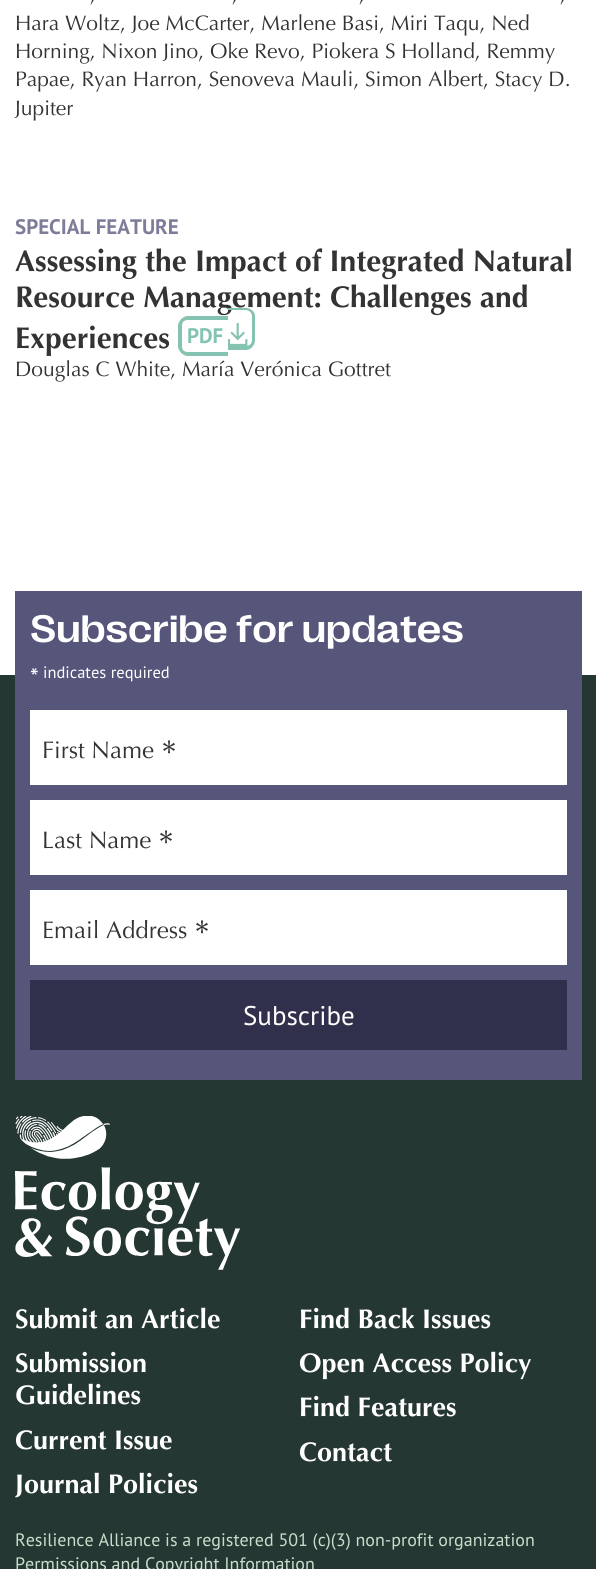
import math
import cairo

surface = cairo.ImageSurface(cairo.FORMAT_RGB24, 596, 1569)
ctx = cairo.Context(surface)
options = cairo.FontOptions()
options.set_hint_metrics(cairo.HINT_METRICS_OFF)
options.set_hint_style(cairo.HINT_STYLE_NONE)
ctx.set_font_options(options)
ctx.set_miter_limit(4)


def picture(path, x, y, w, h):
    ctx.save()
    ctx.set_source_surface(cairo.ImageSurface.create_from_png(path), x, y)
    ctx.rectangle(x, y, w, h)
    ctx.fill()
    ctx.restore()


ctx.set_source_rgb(1, 1, 1)
ctx.paint()
ctx.select_font_face("Optima")
ctx.set_font_size(21)
ctx.set_source_rgb(0.2, 0.2, 0.2)
ctx.move_to(90, 1)
ctx.show_text(",")
ctx.move_to(232, 1)
ctx.show_text(",")
ctx.move_to(359, 1)
ctx.show_text(",")
ctx.move_to(560, 1)
ctx.show_text(",")
ctx.move_to(15, 30)
ctx.show_text("Hara Woltz, Joe McCarter, Marlene Basi, Miri Taqu, Ned")
ctx.move_to(15, 58)
ctx.show_text("Horning, Nixon Jino, Oke Revo, Piokera S Holland, Remmy")
ctx.move_to(15, 86)
ctx.show_text("Papae, Ryan Harron, Senoveva Mauli, Simon Albert, Stacy D.")
ctx.move_to(15, 115)
ctx.show_text("Jupiter")
ctx.select_font_face("PT Sans", cairo.FONT_SLANT_NORMAL, cairo.FONT_WEIGHT_BOLD)
ctx.set_source_rgb(0.49, 0.49, 0.6)
ctx.move_to(15, 234)
ctx.show_text("SPECIAL FEATURE")
ctx.select_font_face("Optima", cairo.FONT_SLANT_NORMAL, cairo.FONT_WEIGHT_BOLD)
ctx.set_font_size(30)
ctx.set_source_rgb(0.2, 0.2, 0.2)
ctx.move_to(15, 271)
ctx.show_text("Assessing the Impact of Integrated Natural")
ctx.move_to(15, 307)
ctx.show_text("Resource Management: Challenges and")
ctx.move_to(15, 348)
ctx.show_text("Experiences")
ctx.set_source_rgb(0.518, 0.761, 0.698)
ctx.set_fill_rule(cairo.FILL_RULE_EVEN_ODD)
ctx.new_path()
ctx.move_to(188, 316)
ctx.line_to(228, 316)
ctx.line_to(228, 356)
ctx.line_to(188, 356)
ctx.curve_to(183, 356, 178, 351, 178, 346)
ctx.line_to(178, 326)
ctx.curve_to(178, 321, 183, 316, 188, 316)
ctx.close_path()
ctx.move_to(188, 320)
ctx.line_to(228, 320)
ctx.line_to(228, 352)
ctx.line_to(188, 352)
ctx.curve_to(184, 352, 182, 350, 182, 346)
ctx.line_to(182, 326)
ctx.curve_to(182, 322, 184, 320, 188, 320)
ctx.close_path()
ctx.fill()
ctx.select_font_face("PT Sans", cairo.FONT_SLANT_NORMAL, cairo.FONT_WEIGHT_BOLD)
ctx.set_font_size(21)
ctx.move_to(187, 343)
ctx.show_text("PDF")
ctx.new_path()
ctx.move_to(228, 308)
ctx.line_to(246, 308)
ctx.curve_to(251, 308, 255, 312, 255, 316)
ctx.line_to(255, 340)
ctx.curve_to(255, 345, 251, 350, 246, 350)
ctx.line_to(228, 350)
ctx.close_path()
ctx.move_to(228, 310)
ctx.line_to(246, 310)
ctx.curve_to(249, 310, 252, 313, 252, 316)
ctx.line_to(252, 340)
ctx.curve_to(252, 344, 249, 346, 246, 346)
ctx.line_to(228, 346)
ctx.close_path()
ctx.fill()
picture("img1.png", 228, 323, 20, 23)
ctx.select_font_face("Optima")
ctx.set_source_rgb(0.2, 0.2, 0.2)
ctx.move_to(15, 376)
ctx.show_text("Douglas C White, María Verónica Gottret")
ctx.set_source_rgb(0.145, 0.216, 0.2)
ctx.rectangle(0, 675, 596, 894)
ctx.fill()
ctx.set_source_rgb(0.333, 0.337, 0.478)
ctx.rectangle(15, 591, 567, 489)
ctx.fill()
ctx.select_font_face("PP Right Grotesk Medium")
ctx.set_font_size(39)
ctx.set_source_rgb(1, 1, 1)
ctx.move_to(30, 642)
ctx.show_text("Subscribe for updates")
ctx.select_font_face("PT Sans")
ctx.set_font_size(25)
ctx.move_to(30, 686)
ctx.show_text("*")
ctx.set_font_size(16.5)
ctx.move_to(43, 678)
ctx.show_text("indicates required")
ctx.rectangle(30, 710, 537, 75)
ctx.fill()
ctx.select_font_face("Optima")
ctx.set_font_size(24)
ctx.set_source_rgb(0.2, 0.2, 0.2)
ctx.move_to(42, 758)
ctx.show_text("First Name")
ctx.set_font_size(36)
ctx.move_to(161, 765)
ctx.show_text("*")
ctx.set_source_rgb(1, 1, 1)
ctx.rectangle(30, 800, 537, 75)
ctx.fill()
ctx.set_font_size(24)
ctx.set_source_rgb(0.2, 0.2, 0.2)
ctx.move_to(42, 848)
ctx.show_text("Last Name")
ctx.set_font_size(36)
ctx.move_to(158, 855)
ctx.show_text("*")
ctx.set_source_rgb(1, 1, 1)
ctx.rectangle(30, 890, 537, 75)
ctx.fill()
ctx.set_font_size(24)
ctx.set_source_rgb(0.2, 0.2, 0.2)
ctx.move_to(42, 938)
ctx.show_text("Email Address")
ctx.set_font_size(36)
ctx.move_to(194, 945)
ctx.show_text("*")
ctx.set_source_rgb(0.188, 0.188, 0.298)
ctx.rectangle(30, 980, 537, 70)
ctx.fill()
ctx.select_font_face("PT Sans")
ctx.set_font_size(27)
ctx.set_source_rgb(1, 1, 1)
ctx.move_to(243, 1025)
ctx.show_text("Subscribe")
picture("img2.png", 15, 1116, 225, 154)
ctx.select_font_face("Optima", cairo.FONT_SLANT_NORMAL, cairo.FONT_WEIGHT_BOLD)
ctx.move_to(15, 1328)
ctx.show_text("Submit an Article")
ctx.move_to(299, 1328)
ctx.show_text("Find Back Issues")
ctx.move_to(15, 1372)
ctx.show_text("Submission")
ctx.move_to(15, 1404)
ctx.show_text("Guidelines")
ctx.move_to(299, 1372)
ctx.show_text("Open Access Policy")
ctx.move_to(299, 1416)
ctx.show_text("Find Features")
ctx.move_to(15, 1449)
ctx.show_text("Current Issue")
ctx.move_to(299, 1461)
ctx.show_text("Contact")
ctx.move_to(15, 1493)
ctx.show_text("Journal Policies")
ctx.select_font_face("PT Sans")
ctx.set_font_size(18)
ctx.set_source_rgb(0.788, 0.871, 0.792)
ctx.move_to(15, 1546)
ctx.show_text("Resilience Alliance is a registered 501 (c)(3) non-profit organization")
ctx.move_to(15, 1570)
ctx.show_text("Permissions and Copyright Information")
surface.write_to_png("page.png")
